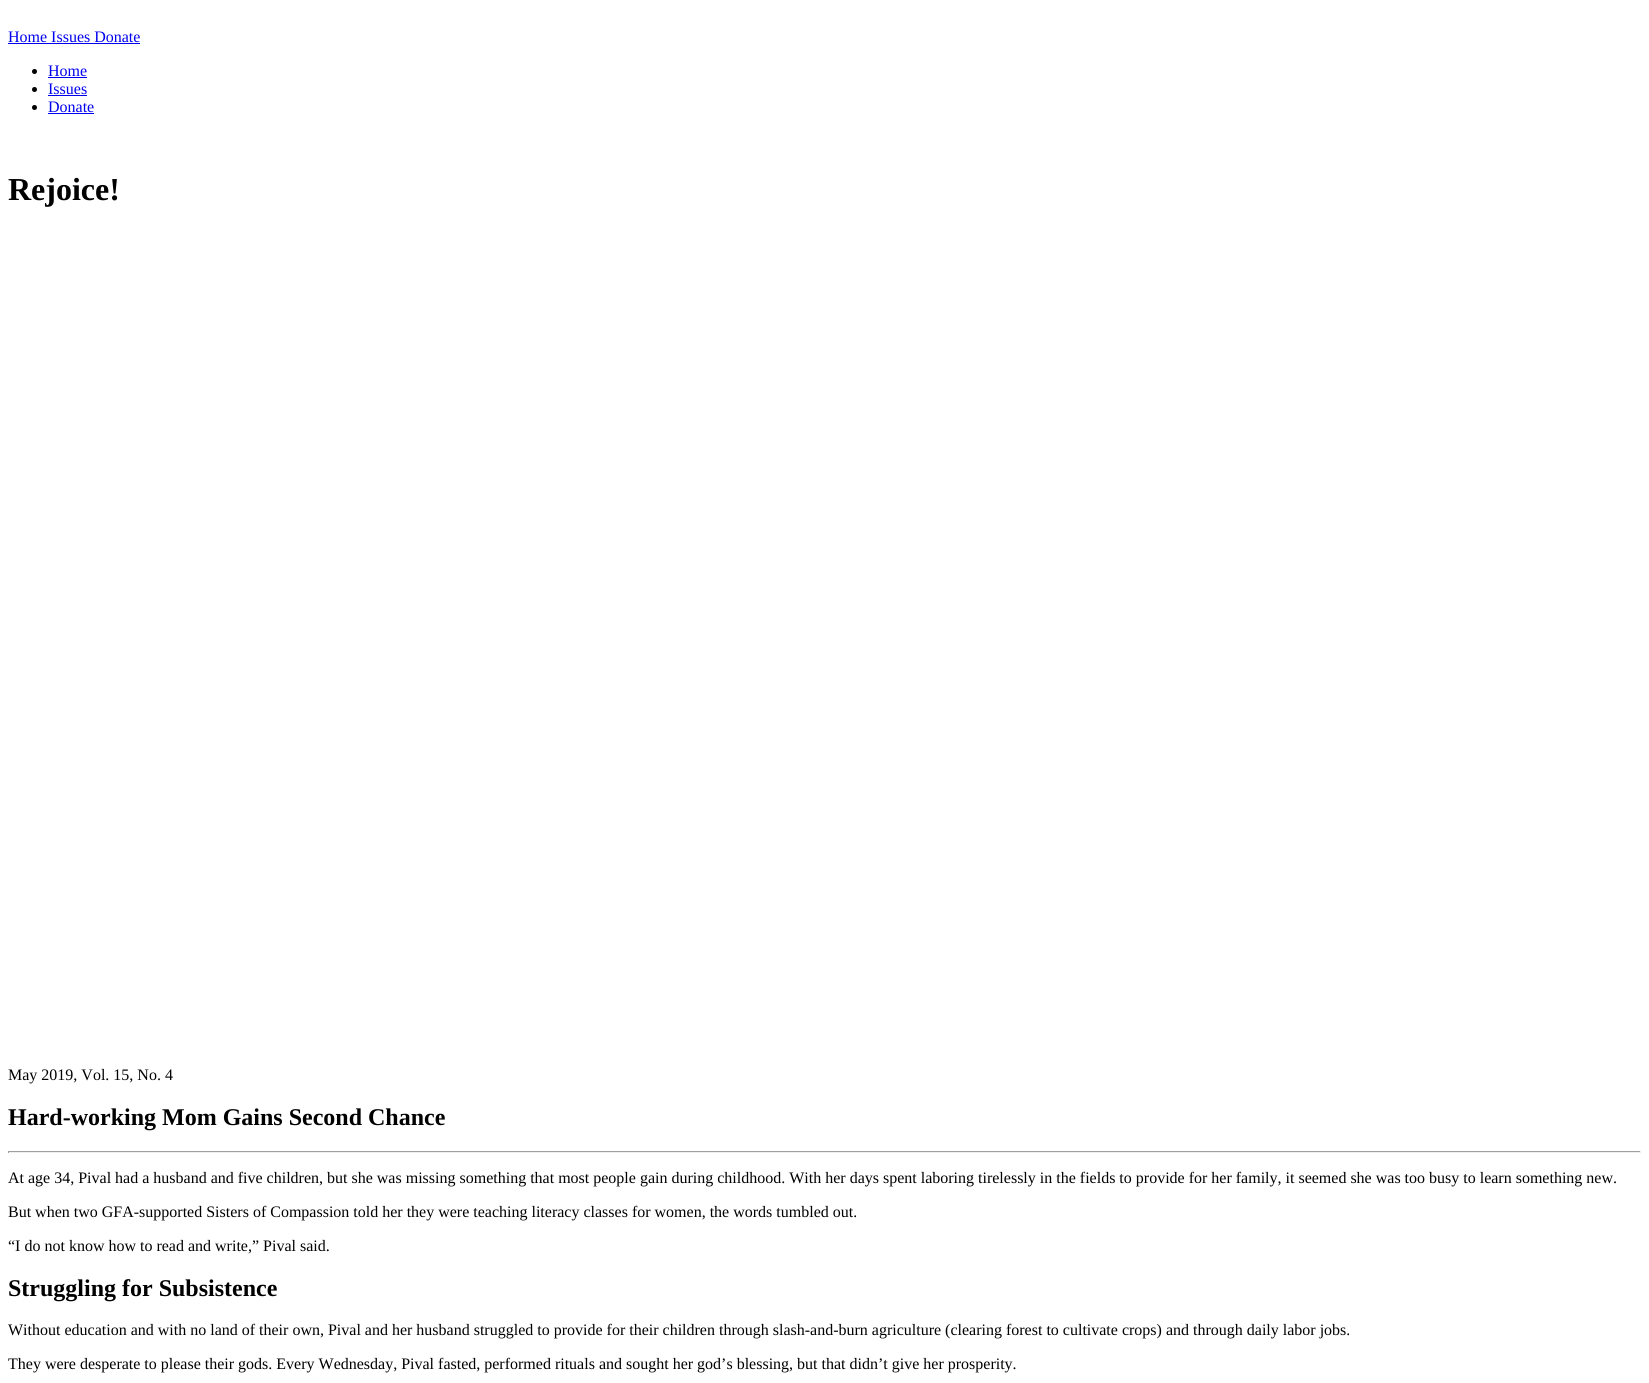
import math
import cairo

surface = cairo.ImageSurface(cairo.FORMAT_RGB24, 1649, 1383)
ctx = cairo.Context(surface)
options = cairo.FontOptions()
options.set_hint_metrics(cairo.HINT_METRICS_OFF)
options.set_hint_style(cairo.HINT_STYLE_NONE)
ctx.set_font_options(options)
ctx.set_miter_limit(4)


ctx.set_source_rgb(1, 1, 1)
ctx.paint()
ctx.select_font_face("Liberation Serif")
ctx.set_font_size(16)
ctx.set_source_rgb(0, 0, 0.933)
ctx.move_to(8, 42)
ctx.show_text("Home Issues Donate")
ctx.rectangle(8, 43, 132, 1)
ctx.fill()
ctx.set_source_rgb(0, 0, 0)
ctx.arc(34.5, 71.5, 2.5, 0, 2 * math.pi)
ctx.fill()
ctx.set_source_rgb(0, 0, 0.933)
ctx.move_to(48, 76)
ctx.show_text("Home")
ctx.rectangle(48, 77, 39, 1)
ctx.fill()
ctx.set_source_rgb(0, 0, 0)
ctx.arc(34.5, 89.5, 2.5, 0, 2 * math.pi)
ctx.fill()
ctx.set_source_rgb(0, 0, 0.933)
ctx.move_to(48, 94)
ctx.show_text("Issues")
ctx.rectangle(48, 95, 39, 1)
ctx.fill()
ctx.set_source_rgb(0, 0, 0)
ctx.arc(34.5, 107.5, 2.5, 0, 2 * math.pi)
ctx.fill()
ctx.set_source_rgb(0, 0, 0.933)
ctx.move_to(48, 112)
ctx.show_text("Donate")
ctx.rectangle(48, 113, 46, 1)
ctx.fill()
ctx.select_font_face("Liberation Serif", cairo.FONT_SLANT_NORMAL, cairo.FONT_WEIGHT_BOLD)
ctx.set_font_size(32)
ctx.set_source_rgb(0, 0, 0)
ctx.move_to(8, 200)
ctx.show_text("Rejoice!")
ctx.select_font_face("Liberation Serif")
ctx.set_font_size(16)
ctx.move_to(8, 1080)
ctx.show_text("May 2019, Vol. 15, No. 4")
ctx.select_font_face("Liberation Serif", cairo.FONT_SLANT_NORMAL, cairo.FONT_WEIGHT_BOLD)
ctx.set_font_size(24)
ctx.move_to(8, 1125)
ctx.show_text("Hard-working Mom Gains Second Chance")
ctx.set_source_rgb(0.624, 0.624, 0.624)
ctx.rectangle(8, 1151, 1633, 1)
ctx.fill()
ctx.set_source_rgb(0.933, 0.933, 0.933)
ctx.rectangle(1640, 1151, 1, 2)
ctx.fill()
ctx.rectangle(8, 1152, 1633, 1)
ctx.fill()
ctx.set_source_rgb(0.624, 0.624, 0.624)
ctx.rectangle(8, 1151, 1, 2)
ctx.fill()
ctx.select_font_face("Liberation Serif")
ctx.set_font_size(16)
ctx.set_source_rgb(0, 0, 0)
ctx.move_to(8, 1183)
ctx.show_text("At age 34, Pival had a husband and five children, but she was missing something that most people gain during childhood. With her days spent laboring tirelessly in the fields to provide for her family, it seemed she was too busy to learn something new.")
ctx.move_to(8, 1217)
ctx.show_text("But when two GFA-supported Sisters of Compassion told her they were teaching literacy classes for women, the words tumbled out.")
ctx.move_to(8, 1251)
ctx.show_text("“I do not know how to read and write,” Pival said.")
ctx.select_font_face("Liberation Serif", cairo.FONT_SLANT_NORMAL, cairo.FONT_WEIGHT_BOLD)
ctx.set_font_size(24)
ctx.move_to(8, 1296)
ctx.show_text("Struggling for Subsistence")
ctx.select_font_face("Liberation Serif")
ctx.set_font_size(16)
ctx.move_to(8, 1335)
ctx.show_text("Without education and with no land of their own, Pival and her husband struggled to provide for their children through slash-and-burn agriculture (clearing forest to cultivate crops) and through daily labor jobs.")
ctx.move_to(8, 1369)
ctx.show_text("They were desperate to please their gods. Every Wednesday, Pival fasted, performed rituals and sought her god’s blessing, but that didn’t give her prosperity.")
surface.write_to_png("page.png")
